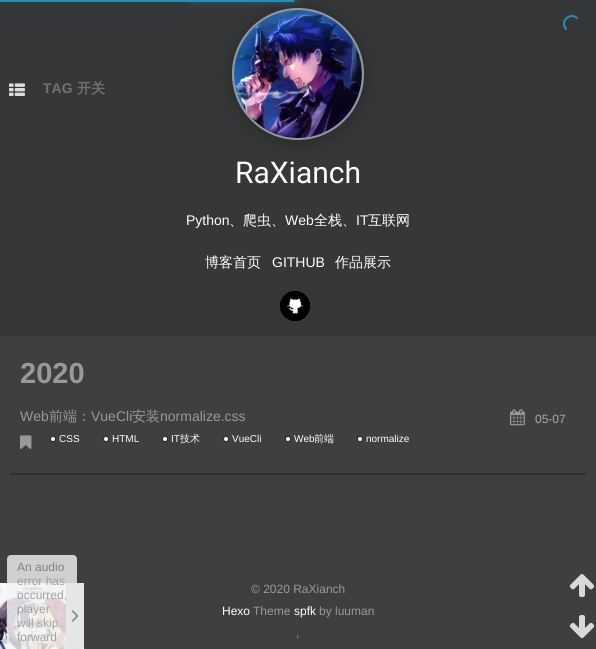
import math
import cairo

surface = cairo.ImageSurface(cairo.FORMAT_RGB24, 596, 649)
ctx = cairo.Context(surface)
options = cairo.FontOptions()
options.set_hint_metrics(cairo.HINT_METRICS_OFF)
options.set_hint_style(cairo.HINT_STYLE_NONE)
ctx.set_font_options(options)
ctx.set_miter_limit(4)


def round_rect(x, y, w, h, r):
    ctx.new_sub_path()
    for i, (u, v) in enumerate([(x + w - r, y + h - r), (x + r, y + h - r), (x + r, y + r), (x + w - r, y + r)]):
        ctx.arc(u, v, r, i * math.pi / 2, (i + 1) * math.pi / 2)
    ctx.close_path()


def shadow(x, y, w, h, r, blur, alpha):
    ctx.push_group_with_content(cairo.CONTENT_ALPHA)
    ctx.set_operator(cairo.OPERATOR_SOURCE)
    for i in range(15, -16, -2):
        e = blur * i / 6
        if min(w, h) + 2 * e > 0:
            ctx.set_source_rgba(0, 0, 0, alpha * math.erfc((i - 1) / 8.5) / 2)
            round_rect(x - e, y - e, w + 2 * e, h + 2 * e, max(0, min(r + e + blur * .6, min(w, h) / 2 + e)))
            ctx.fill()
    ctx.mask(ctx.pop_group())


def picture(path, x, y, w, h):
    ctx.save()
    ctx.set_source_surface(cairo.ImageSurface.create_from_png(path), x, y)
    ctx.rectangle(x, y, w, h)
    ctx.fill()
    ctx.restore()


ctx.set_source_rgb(0.247, 0.247, 0.247)
ctx.paint()
ctx.set_source_rgb(0.208, 0.216, 0.224)
ctx.rectangle(0, 0, 596, 336)
ctx.fill()
ctx.set_source_rgb(0, 0, 0)
shadow(231, 9, 134, 134, 67, 10, 0.25)
ctx.set_source_rgb(0.145, 0.561, 0.722)
ctx.rectangle(0, 0, 294, 2)
ctx.fill()
ctx.arc(298, 74, 65, 0, 2 * math.pi)
ctx.set_source_rgba(1, 1, 1, 0.5)
ctx.stroke()
ctx.set_source_rgb(0.533, 0.675, 0.859)
ctx.arc(298, 74, 64, 0, 2 * math.pi)
ctx.fill()
picture("img2.png", 234, 10, 128, 128)
ctx.set_source_rgb(0.145, 0.561, 0.722)
shadow(194, -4, 100, 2, 0, 5, 1)
ctx.new_path()
ctx.move_to(566.5, 29.5)
ctx.curve_to(559, 22, 570, 11, 577.5, 18.5)
ctx.set_source_rgb(0.145, 0.561, 0.722)
ctx.stroke()
ctx.select_font_face("Liberation Sans", cairo.FONT_SLANT_NORMAL, cairo.FONT_WEIGHT_BOLD)
ctx.set_font_size(14)
ctx.set_source_rgb(0.443, 0.447, 0.451)
ctx.move_to(43, 93)
ctx.show_text("TAG")
ctx.select_font_face("WenQuanYi Zen Hei", cairo.FONT_SLANT_NORMAL, cairo.FONT_WEIGHT_BOLD)
ctx.move_to(77, 93)
ctx.show_text("开关")
picture("img1.png", 9, 83, 16, 13)
ctx.select_font_face("Roboto")
ctx.set_font_size(30)
ctx.set_source_rgb(1, 1, 1)
ctx.move_to(235, 183)
ctx.show_text("RaXianch")
ctx.select_font_face("Liberation Sans")
ctx.set_font_size(14)
ctx.move_to(186, 225)
ctx.show_text("Python")
ctx.select_font_face("WenQuanYi Zen Hei Medium")
ctx.move_to(229, 225)
ctx.show_text("、爬虫、")
ctx.select_font_face("Liberation Sans")
ctx.move_to(285, 225)
ctx.show_text("Web")
ctx.select_font_face("WenQuanYi Zen Hei Medium")
ctx.move_to(314, 225)
ctx.show_text("全栈、")
ctx.select_font_face("Liberation Sans")
ctx.move_to(356, 225)
ctx.show_text("IT")
ctx.select_font_face("WenQuanYi Zen Hei Medium")
ctx.move_to(368, 225)
ctx.show_text("互联网")
ctx.move_to(205, 267)
ctx.show_text("博客首页")
ctx.select_font_face("Liberation Sans")
ctx.move_to(272, 267)
ctx.show_text("GITHUB")
ctx.select_font_face("WenQuanYi Zen Hei Medium")
ctx.move_to(335, 267)
ctx.show_text("作品展示")
ctx.set_source_rgb(0, 0, 0)
ctx.new_path()
ctx.arc(295, 306, 15, 0, 2 * math.pi)
ctx.fill()
picture("img3.png", 287, 298, 16, 16)
ctx.arc(295, 306, 14.5, 0, 2 * math.pi)
ctx.set_line_width(1)
ctx.stroke()
ctx.set_source_rgb(0.184, 0.184, 0.184)
ctx.rectangle(10, 473, 576, 2)
ctx.fill()
ctx.select_font_face("Liberation Sans", cairo.FONT_SLANT_NORMAL, cairo.FONT_WEIGHT_BOLD)
ctx.set_font_size(29)
ctx.set_source_rgb(0.6, 0.6, 0.6)
ctx.move_to(20, 383)
ctx.show_text("2020")
ctx.select_font_face("Liberation Sans")
ctx.set_font_size(14)
ctx.move_to(20, 421)
ctx.show_text("Web")
ctx.select_font_face("WenQuanYi Zen Hei Medium")
ctx.move_to(49, 421)
ctx.show_text("前端：")
ctx.select_font_face("Liberation Sans")
ctx.move_to(91, 421)
ctx.show_text("VueCli")
ctx.select_font_face("WenQuanYi Zen Hei Medium")
ctx.move_to(132, 421)
ctx.show_text("安装")
ctx.select_font_face("Liberation Sans")
ctx.move_to(160, 421)
ctx.show_text("normalize.css")
picture("img4.png", 510, 409, 15, 17)
ctx.set_font_size(12)
ctx.set_source_rgb(0.667, 0.667, 0.667)
ctx.move_to(535, 423)
ctx.show_text("05-07")
picture("img5.png", 20, 435, 12, 14)
ctx.arc(53, 439, 2.5, 0, 2 * math.pi)
ctx.set_source_rgb(0.173, 0.173, 0.173)
ctx.stroke()
ctx.set_source_rgb(1, 1, 1)
ctx.arc(53, 439, 2, 0, 2 * math.pi)
ctx.fill()
ctx.set_font_size(10)
ctx.move_to(59, 442)
ctx.show_text("CSS")
ctx.new_path()
ctx.arc(106, 439, 2.5, 0, 2 * math.pi)
ctx.set_source_rgb(0.173, 0.173, 0.173)
ctx.stroke()
ctx.set_source_rgb(1, 1, 1)
ctx.arc(106, 439, 2, 0, 2 * math.pi)
ctx.fill()
ctx.move_to(112, 442)
ctx.show_text("HTML")
ctx.new_path()
ctx.arc(165, 439, 2.5, 0, 2 * math.pi)
ctx.set_source_rgb(0.173, 0.173, 0.173)
ctx.stroke()
ctx.set_source_rgb(1, 1, 1)
ctx.arc(165, 439, 2, 0, 2 * math.pi)
ctx.fill()
ctx.move_to(171, 442)
ctx.show_text("IT")
ctx.select_font_face("WenQuanYi Zen Hei Medium")
ctx.move_to(180, 442)
ctx.show_text("技术")
ctx.new_path()
ctx.arc(226, 439, 2.5, 0, 2 * math.pi)
ctx.set_source_rgb(0.173, 0.173, 0.173)
ctx.stroke()
ctx.set_source_rgb(1, 1, 1)
ctx.arc(226, 439, 2, 0, 2 * math.pi)
ctx.fill()
ctx.select_font_face("Liberation Sans")
ctx.move_to(232, 442)
ctx.show_text("VueCli")
ctx.new_path()
ctx.arc(288, 439, 2.5, 0, 2 * math.pi)
ctx.set_source_rgb(0.173, 0.173, 0.173)
ctx.stroke()
ctx.set_source_rgb(1, 1, 1)
ctx.arc(288, 439, 2, 0, 2 * math.pi)
ctx.fill()
ctx.move_to(294, 442)
ctx.show_text("Web")
ctx.select_font_face("WenQuanYi Zen Hei Medium")
ctx.move_to(314, 442)
ctx.show_text("前端")
ctx.new_path()
ctx.arc(360, 439, 2.5, 0, 2 * math.pi)
ctx.set_source_rgb(0.173, 0.173, 0.173)
ctx.stroke()
ctx.set_source_rgb(1, 1, 1)
ctx.arc(360, 439, 2, 0, 2 * math.pi)
ctx.fill()
ctx.select_font_face("Liberation Sans")
ctx.move_to(366, 442)
ctx.show_text("normalize")
ctx.set_font_size(12)
ctx.set_source_rgb(0.6, 0.6, 0.6)
ctx.move_to(251, 593)
ctx.show_text("© 2020 RaXianch")
ctx.set_source_rgb(1, 1, 1)
ctx.move_to(222, 615)
ctx.show_text("Hexo")
ctx.set_source_rgb(0.6, 0.6, 0.6)
ctx.move_to(253, 615)
ctx.show_text("Theme")
ctx.set_source_rgb(1, 1, 1)
ctx.move_to(294, 615)
ctx.show_text("spfk")
ctx.set_source_rgb(0.6, 0.6, 0.6)
ctx.move_to(319, 615)
ctx.show_text("by luuman")
ctx.move_to(296, 637)
ctx.show_text(",")
ctx.set_source_rgb(1, 1, 1)
ctx.rectangle(82, 583, 2, 66)
ctx.fill()
picture("img6.png", 0, 583, 66, 66)
ctx.save()
ctx.set_fill_rule(cairo.FILL_RULE_EVEN_ODD)
ctx.new_path()
ctx.move_to(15, 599)
ctx.line_to(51, 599)
ctx.line_to(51, 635)
ctx.line_to(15, 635)
ctx.close_path()
ctx.move_to(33, 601)
ctx.curve_to(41.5, 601, 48, 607.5, 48, 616)
ctx.curve_to(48, 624.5, 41.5, 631, 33, 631)
ctx.curve_to(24.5, 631, 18, 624.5, 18, 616)
ctx.curve_to(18, 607.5, 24.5, 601, 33, 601)
ctx.close_path()
ctx.clip()
ctx.set_source_rgb(0, 0, 0)
shadow(18, 602, 30, 30, 15, 0.5, 0.16)
ctx.restore()
ctx.set_source_rgba(0, 0, 0, 0.16)
ctx.arc(33, 616, 15, 0, 2 * math.pi)
ctx.fill()
ctx.arc(33, 616, 14, 0, 2 * math.pi)
ctx.set_source_rgba(1, 1, 1, 0.8)
ctx.set_line_width(2)
ctx.stroke()
picture("img7.png", 28, 610, 12, 13)
ctx.set_source_rgba(0.957, 0.957, 0.961, 0.8)
round_rect(7, 555, 70, 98, 4)
ctx.fill()
ctx.set_source_rgb(0.502, 0.51, 0.529)
ctx.move_to(17, 571)
ctx.show_text("An audio")
ctx.set_source_rgb(0.624, 0.631, 0.651)
ctx.move_to(17, 585)
ctx.show_text("error has")
ctx.move_to(17, 599)
ctx.show_text("occurred,")
ctx.move_to(17, 613)
ctx.show_text("player")
ctx.move_to(17, 627)
ctx.show_text("will skip")
ctx.move_to(17, 641)
ctx.show_text("forward")
ctx.set_source_rgb(0.902, 0.902, 0.902)
ctx.new_path()
ctx.move_to(66, 583)
ctx.line_to(82, 583)
ctx.curve_to(83, 583, 84, 584, 84, 585)
ctx.line_to(84, 647)
ctx.curve_to(84, 648, 83, 649, 82, 649)
ctx.line_to(66, 649)
ctx.close_path()
ctx.fill()
picture("img8.png", 71, 610, 8, 12)
picture("img9.png", 569, 574, 26, 23)
picture("img10.png", 569, 615, 26, 24)
surface.write_to_png("page.png")
